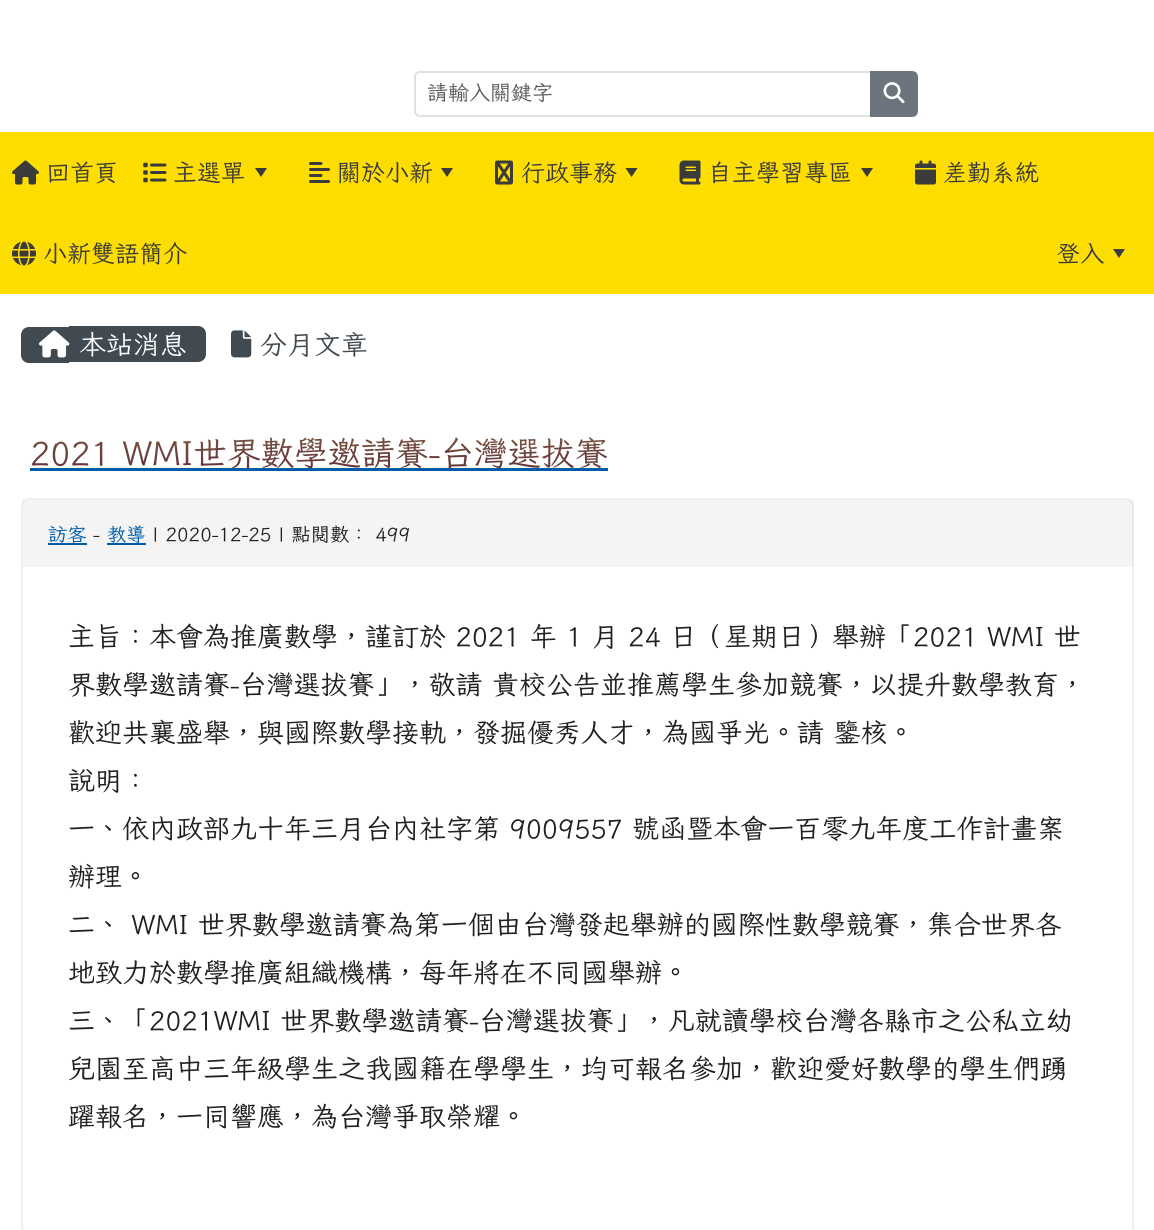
import math
import cairo

surface = cairo.ImageSurface(cairo.FORMAT_RGB24, 1154, 1230)
ctx = cairo.Context(surface)
options = cairo.FontOptions()
options.set_hint_metrics(cairo.HINT_METRICS_OFF)
options.set_hint_style(cairo.HINT_STYLE_NONE)
ctx.set_font_options(options)
ctx.set_miter_limit(4)


def round_rect(x, y, w, h, r):
    ctx.new_sub_path()
    for i, (u, v) in enumerate([(x + w - r, y + h - r), (x + r, y + h - r), (x + r, y + r), (x + w - r, y + r)]):
        ctx.arc(u, v, r, i * math.pi / 2, (i + 1) * math.pi / 2)
    ctx.close_path()


def picture(path, x, y, w, h):
    ctx.save()
    ctx.set_source_surface(cairo.ImageSurface.create_from_png(path), x, y)
    ctx.rectangle(x, y, w, h)
    ctx.fill()
    ctx.restore()


ctx.set_source_rgb(1, 1, 1)
ctx.paint()
ctx.new_path()
ctx.move_to(420, 72)
ctx.line_to(871, 72)
ctx.line_to(871, 116)
ctx.line_to(420, 116)
ctx.curve_to(417, 116, 415, 114, 415, 111)
ctx.line_to(415, 77)
ctx.curve_to(415, 74, 417, 72, 420, 72)
ctx.close_path()
ctx.set_source_rgb(0.871, 0.886, 0.902)
ctx.stroke()
ctx.save()
ctx.rectangle(428, 83, 430, 21)
ctx.clip()
ctx.select_font_face("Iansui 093")
ctx.set_font_size(21)
ctx.set_source_rgb(0.349, 0.361, 0.373)
ctx.move_to(427, 100)
ctx.show_text("請輸入關鍵字")
ctx.restore()
ctx.set_source_rgb(0.424, 0.459, 0.49)
ctx.new_path()
ctx.move_to(871, 72)
ctx.line_to(912, 72)
ctx.curve_to(915, 72, 917, 74, 917, 77)
ctx.line_to(917, 111)
ctx.curve_to(917, 114, 915, 116, 912, 116)
ctx.line_to(871, 116)
ctx.close_path()
ctx.fill_preserve()
ctx.stroke()
picture("img1.png", 883, 82, 22, 22)
ctx.set_source_rgb(0.996, 0.867, 0)
ctx.rectangle(0, 132, 1154, 162)
ctx.fill()
picture("img2.png", 12, 160, 27, 25)
ctx.select_font_face("Iansui 093")
ctx.set_font_size(24)
ctx.set_source_rgb(0.231, 0.231, 0.231)
ctx.move_to(46, 181)
ctx.show_text("回首頁")
picture("img3.png", 143, 162, 24, 21)
ctx.move_to(173, 181)
ctx.show_text("主選單")
ctx.new_path()
ctx.move_to(255, 168)
ctx.line_to(267, 168)
ctx.line_to(261, 177)
ctx.close_path()
ctx.fill()
picture("img4.png", 309, 162, 21, 21)
ctx.move_to(337, 181)
ctx.show_text("關於小新")
ctx.new_path()
ctx.move_to(441, 168)
ctx.line_to(453, 168)
ctx.line_to(447, 177)
ctx.close_path()
ctx.fill()
picture("img5.png", 495, 160, 18, 25)
ctx.move_to(521, 181)
ctx.show_text("行政事務")
ctx.new_path()
ctx.move_to(625.5, 168)
ctx.line_to(637.5, 168)
ctx.line_to(631.5, 177)
ctx.close_path()
ctx.fill()
picture("img6.png", 679, 160, 22, 25)
ctx.move_to(708, 181)
ctx.show_text("自主學習專區")
ctx.new_path()
ctx.move_to(861, 168)
ctx.line_to(873, 168)
ctx.line_to(867, 177)
ctx.close_path()
ctx.fill()
picture("img7.png", 915, 160, 21, 25)
ctx.move_to(943, 181)
ctx.show_text("差勤系統")
picture("img8.png", 12, 241, 24, 25)
ctx.move_to(43, 262)
ctx.show_text("小新雙語簡介")
ctx.move_to(1056, 262)
ctx.show_text("登入")
ctx.new_path()
ctx.move_to(1113, 249)
ctx.line_to(1125, 249)
ctx.line_to(1119, 258)
ctx.close_path()
ctx.fill()
ctx.set_source_rgb(0.251, 0.29, 0.314)
ctx.new_path()
ctx.move_to(29, 327)
ctx.line_to(69, 327)
ctx.line_to(69, 363)
ctx.line_to(29, 363)
ctx.curve_to(24.5, 363, 21, 359.5, 21, 355)
ctx.line_to(21, 335)
ctx.curve_to(21, 330.5, 24.5, 327, 29, 327)
ctx.close_path()
ctx.fill()
ctx.new_path()
ctx.move_to(69, 326)
ctx.line_to(198, 326)
ctx.curve_to(202.5, 326, 206, 329.5, 206, 334)
ctx.line_to(206, 354)
ctx.curve_to(206, 358.5, 202.5, 362, 198, 362)
ctx.line_to(69, 362)
ctx.close_path()
ctx.fill()
picture("img9.png", 39, 330, 31, 28)
ctx.set_font_size(27)
ctx.set_source_rgb(1, 1, 1)
ctx.move_to(79, 354)
ctx.show_text("本站消息")
picture("img10.png", 231, 330, 21, 28)
ctx.set_source_rgb(0.251, 0.29, 0.314)
ctx.move_to(260, 354)
ctx.show_text("分月文章")
ctx.set_source_rgb(0, 0.361, 0.659)
ctx.rectangle(30, 468, 578, 3)
ctx.fill()
ctx.set_font_size(33.6)
gradient = cairo.LinearGradient(578, 424, 578, 482)
gradient.add_color_stop_rgba(0, 0.494, 0.361, 0.251, 1)
gradient.add_color_stop_rgba(1, 0.361, 0.161, 0.22, 1)
ctx.set_source(gradient)
ctx.move_to(30, 465)
ctx.show_text("2021 WMI世界數學邀請賽-台灣選拔賽")
round_rect(22, 499, 1111, 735, 7)
ctx.set_source_rgb(0.937, 0.937, 0.937)
ctx.stroke()
ctx.set_source_rgba(0.784, 0.784, 0.784, 0.2)
ctx.rectangle(23, 500, 1110, 67)
ctx.fill()
ctx.set_font_size(19.25)
ctx.set_source_rgb(0, 0.361, 0.659)
ctx.move_to(48, 541)
ctx.show_text("訪客")
ctx.rectangle(48, 543, 39, 2)
ctx.fill()
ctx.set_source_rgb(0.125, 0.125, 0.125)
ctx.move_to(93, 541)
ctx.show_text("-")
ctx.set_source_rgb(0, 0.361, 0.659)
ctx.move_to(107, 541)
ctx.show_text("教導")
ctx.rectangle(107, 543, 39, 2)
ctx.fill()
ctx.set_source_rgb(0.125, 0.125, 0.125)
ctx.move_to(152, 541)
ctx.show_text("| 2020-12-25 | 點閱數： 499")
ctx.set_font_size(27)
ctx.move_to(68, 646)
ctx.show_text("主旨：本會為推廣數學，謹訂於 2021 年 1 月 24 日（星期日）舉辦「2021 WMI 世")
ctx.move_to(68, 694)
ctx.show_text("界數學邀請賽-台灣選拔賽」，敬請 貴校公告並推薦學生參加競賽，以提升數學教育，")
ctx.move_to(68, 742)
ctx.show_text("歡迎共襄盛舉，與國際數學接軌，發掘優秀人才，為國爭光。請 鑒核。")
ctx.move_to(68, 790)
ctx.show_text("說明：")
ctx.move_to(68, 838)
ctx.show_text("一、依內政部九十年三月台內社字第 9009557 號函暨本會一百零九年度工作計畫案")
ctx.move_to(68, 886)
ctx.show_text("辦理。")
ctx.move_to(68, 934)
ctx.show_text("二、 WMI 世界數學邀請賽為第一個由台灣發起舉辦的國際性數學競賽，集合世界各")
ctx.move_to(68, 982)
ctx.show_text("地致力於數學推廣組織機構，每年將在不同國舉辦。")
ctx.move_to(68, 1030)
ctx.show_text("三、「2021WMI 世界數學邀請賽-台灣選拔賽」，凡就讀學校台灣各縣市之公私立幼")
ctx.move_to(68, 1078)
ctx.show_text("兒園至高中三年級學生之我國籍在學學生，均可報名參加，歡迎愛好數學的學生們踴")
ctx.move_to(68, 1126)
ctx.show_text("躍報名，一同響應，為台灣爭取榮耀。")
surface.write_to_png("page.png")
